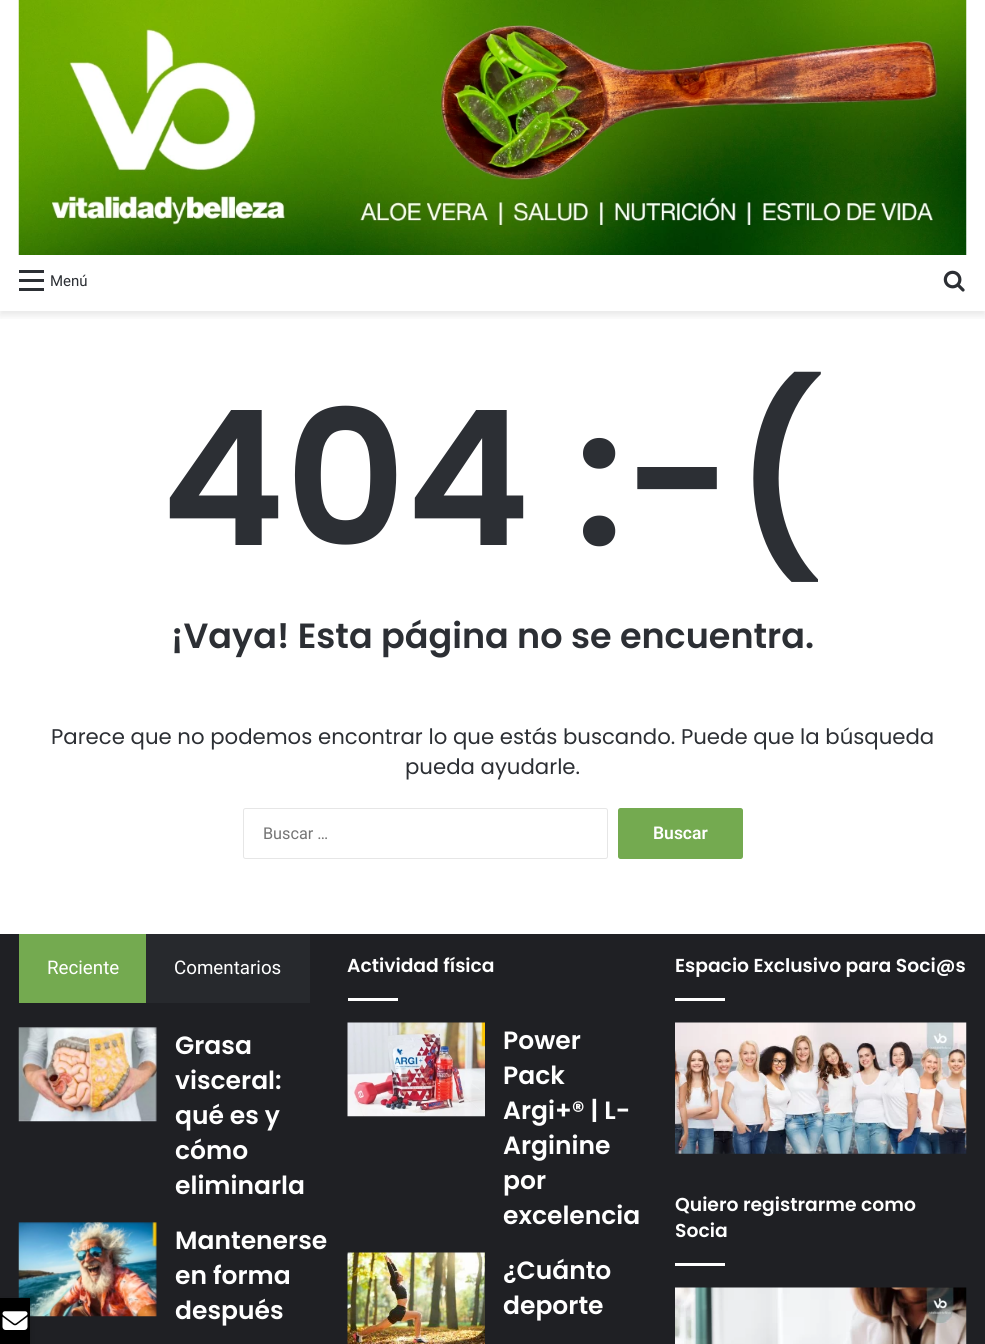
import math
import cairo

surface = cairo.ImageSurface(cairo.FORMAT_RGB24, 985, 1344)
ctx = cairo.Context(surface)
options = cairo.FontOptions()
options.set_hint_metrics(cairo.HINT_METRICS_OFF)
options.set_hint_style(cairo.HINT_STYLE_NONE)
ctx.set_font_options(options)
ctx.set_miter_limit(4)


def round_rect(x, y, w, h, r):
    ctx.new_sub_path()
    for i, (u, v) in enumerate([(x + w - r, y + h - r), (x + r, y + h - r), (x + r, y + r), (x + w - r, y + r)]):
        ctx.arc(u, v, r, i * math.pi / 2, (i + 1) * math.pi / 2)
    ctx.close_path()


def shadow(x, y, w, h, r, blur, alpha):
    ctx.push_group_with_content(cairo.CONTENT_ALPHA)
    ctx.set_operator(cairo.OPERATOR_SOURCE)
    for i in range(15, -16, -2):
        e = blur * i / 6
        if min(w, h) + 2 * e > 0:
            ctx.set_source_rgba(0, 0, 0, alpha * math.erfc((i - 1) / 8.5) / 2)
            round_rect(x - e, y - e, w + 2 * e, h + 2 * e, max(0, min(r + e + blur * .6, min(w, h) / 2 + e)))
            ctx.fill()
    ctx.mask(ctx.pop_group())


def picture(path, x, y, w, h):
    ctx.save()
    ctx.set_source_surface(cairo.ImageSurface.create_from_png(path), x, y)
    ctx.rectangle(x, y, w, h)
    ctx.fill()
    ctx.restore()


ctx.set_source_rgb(1, 1, 1)
ctx.paint()
ctx.set_source_rgb(0.122, 0.125, 0.141)
ctx.rectangle(0, 934, 985, 410)
ctx.fill()
picture("img5.png", 18, 1222, 139, 95)
ctx.set_source_rgb(0, 0, 0)
shadow(0, 1301, 30, 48, 0, 4, 0.16)
ctx.set_source_rgb(0, 0, 0)
ctx.rectangle(0, 1298, 30, 46)
ctx.fill()
picture("img1.png", 2, 1311, 26, 19)
ctx.save()
ctx.rectangle(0, 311, 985, 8)
ctx.clip()
ctx.set_source_rgb(0, 0, 0)
shadow(0, 4, 985, 311, 0, 4.5, 0.1)
ctx.restore()
picture("img2.png", 18, 0, 949, 255)
ctx.set_source_rgb(0.173, 0.184, 0.204)
ctx.rectangle(19, 279, 25, 3)
ctx.fill()
ctx.rectangle(19, 270, 25, 3)
ctx.fill()
ctx.rectangle(19, 288, 25, 3)
ctx.fill()
ctx.select_font_face("Roboto")
ctx.set_font_size(15)
ctx.move_to(50, 286)
ctx.show_text("Menú")
picture("img3.png", 943, 270, 22, 22)
ctx.select_font_face("Poppins SemiBold")
ctx.set_font_size(187.5)
ctx.move_to(161, 545)
ctx.show_text("404 :-(")
ctx.set_font_size(35)
ctx.move_to(171, 648)
ctx.show_text("¡Vaya! Esta página no se encuentra.")
ctx.select_font_face("Poppins")
ctx.set_font_size(21.25)
ctx.move_to(51, 744)
ctx.show_text("Parece que no podemos encontrar lo que estás buscando. Puede que la búsqueda")
ctx.move_to(405, 774)
ctx.show_text("pueda ayudarle.")
round_rect(243.5, 808.5, 364, 50, 2)
ctx.set_source_rgb(0.902, 0.902, 0.902)
ctx.set_line_width(1)
ctx.stroke()
ctx.select_font_face("Roboto")
ctx.set_font_size(16.25)
ctx.set_source_rgb(0.459, 0.459, 0.459)
ctx.move_to(263, 839)
ctx.show_text("Buscar …")
ctx.set_source_rgb(0.455, 0.667, 0.314)
round_rect(618, 808, 125, 51, 2.5)
ctx.fill()
ctx.select_font_face("Roboto SemiBold")
ctx.set_font_size(17.5)
ctx.set_source_rgb(1, 1, 1)
ctx.move_to(653, 839)
ctx.show_text("Buscar")
ctx.set_source_rgb(0.455, 0.667, 0.314)
ctx.rectangle(19, 934, 127, 69)
ctx.fill()
ctx.select_font_face("Roboto")
ctx.set_font_size(18.75)
ctx.set_source_rgb(1, 1, 1)
ctx.move_to(47, 974)
ctx.show_text("Reciente")
ctx.set_source_rgb(0.153, 0.161, 0.176)
ctx.rectangle(146, 934, 164, 69)
ctx.fill()
ctx.set_source_rgb(1, 1, 1)
ctx.move_to(174, 974)
ctx.show_text("Comentarios")
picture("img4.png", 18, 1027, 139, 95)
ctx.select_font_face("Poppins SemiBold")
ctx.set_font_size(25)
ctx.move_to(175, 1054)
ctx.show_text("Grasa")
ctx.move_to(175, 1089)
ctx.show_text("visceral:")
ctx.move_to(175, 1124)
ctx.show_text("qué es y")
ctx.move_to(175, 1159)
ctx.show_text("cómo")
ctx.move_to(175, 1194)
ctx.show_text("eliminarla")
ctx.move_to(175, 1249)
ctx.show_text("Mantenerse")
ctx.move_to(175, 1284)
ctx.show_text("en forma")
ctx.move_to(175, 1319)
ctx.show_text("después")
ctx.set_font_size(18.75)
ctx.move_to(347, 972)
ctx.show_text("Actividad física")
ctx.rectangle(348, 998, 50, 3)
ctx.fill()
picture("img6.png", 347, 1022, 138, 95)
ctx.set_font_size(25)
ctx.move_to(503, 1049)
ctx.show_text("Power")
ctx.move_to(503, 1084)
ctx.show_text("Pack")
ctx.move_to(503, 1119)
ctx.show_text("Argi+® | L-")
ctx.move_to(503, 1154)
ctx.show_text("Arginine")
ctx.move_to(503, 1189)
ctx.show_text("por")
ctx.move_to(503, 1224)
ctx.show_text("excelencia")
picture("img7.png", 347, 1252, 138, 92)
ctx.move_to(503, 1279)
ctx.show_text("¿Cuánto")
ctx.move_to(503, 1314)
ctx.show_text("deporte")
ctx.set_font_size(18.75)
ctx.move_to(675, 972)
ctx.show_text("Espacio Exclusivo para Soci@s")
ctx.rectangle(675, 998, 50, 3)
ctx.fill()
picture("img8.png", 675, 1022, 292, 132)
ctx.move_to(675, 1211)
ctx.show_text("Quiero registrarme como")
ctx.move_to(675, 1237)
ctx.show_text("Socia")
ctx.rectangle(675, 1263, 50, 3)
ctx.fill()
picture("img9.png", 675, 1287, 292, 57)
surface.write_to_png("page.png")
